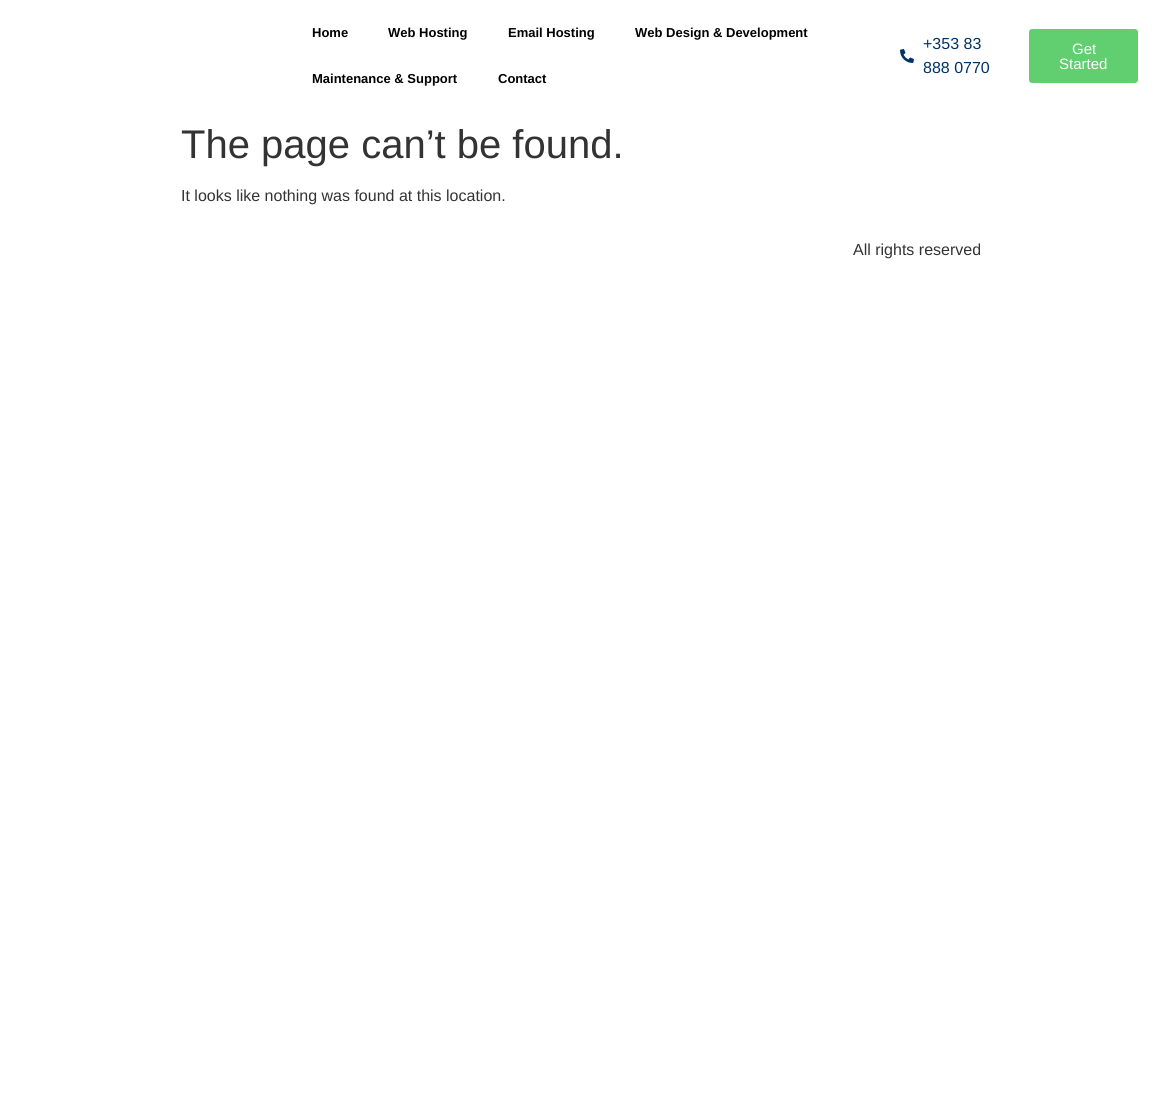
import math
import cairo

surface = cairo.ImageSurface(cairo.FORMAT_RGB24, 1162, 1095)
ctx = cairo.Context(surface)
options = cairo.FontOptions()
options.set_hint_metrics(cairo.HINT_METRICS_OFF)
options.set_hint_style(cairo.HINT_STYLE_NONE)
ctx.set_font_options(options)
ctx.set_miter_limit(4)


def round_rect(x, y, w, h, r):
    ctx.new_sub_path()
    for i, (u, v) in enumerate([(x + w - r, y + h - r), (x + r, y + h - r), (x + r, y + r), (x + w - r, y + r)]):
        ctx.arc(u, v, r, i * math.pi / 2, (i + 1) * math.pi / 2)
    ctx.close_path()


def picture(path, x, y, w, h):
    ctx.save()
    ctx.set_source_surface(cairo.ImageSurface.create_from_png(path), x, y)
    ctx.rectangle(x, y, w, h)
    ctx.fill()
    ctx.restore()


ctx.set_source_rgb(1, 1, 1)
ctx.paint()
ctx.select_font_face("Liberation Sans", cairo.FONT_SLANT_NORMAL, cairo.FONT_WEIGHT_BOLD)
ctx.set_font_size(13)
ctx.set_source_rgb(0, 0, 0)
ctx.move_to(312, 37)
ctx.show_text("Home")
ctx.move_to(388, 37)
ctx.show_text("Web Hosting")
ctx.move_to(508, 37)
ctx.show_text("Email Hosting")
ctx.move_to(635, 37)
ctx.show_text("Web Design & Development")
ctx.move_to(312, 83)
ctx.show_text("Maintenance & Support")
ctx.move_to(498, 83)
ctx.show_text("Contact")
picture("img1.png", 900, 49, 14, 14)
ctx.select_font_face("Liberation Sans")
ctx.set_font_size(16)
ctx.set_source_rgb(0, 0.2, 0.4)
ctx.move_to(923, 49)
ctx.show_text("+353 83")
ctx.move_to(923, 73)
ctx.show_text("888 0770")
ctx.set_source_rgb(0.38, 0.808, 0.439)
round_rect(1029, 29, 109, 54, 3)
ctx.fill()
ctx.set_font_size(15)
ctx.set_source_rgb(1, 1, 1)
ctx.move_to(1072, 54)
ctx.show_text("Get")
ctx.move_to(1059, 69)
ctx.show_text("Started")
ctx.set_font_size(40)
ctx.set_source_rgb(0.2, 0.2, 0.2)
ctx.move_to(181, 158)
ctx.show_text("The page can’t be found.")
ctx.set_font_size(16)
ctx.move_to(181, 201)
ctx.show_text("It looks like nothing was found at this location.")
ctx.move_to(853, 255)
ctx.show_text("All rights reserved")
surface.write_to_png("page.png")
